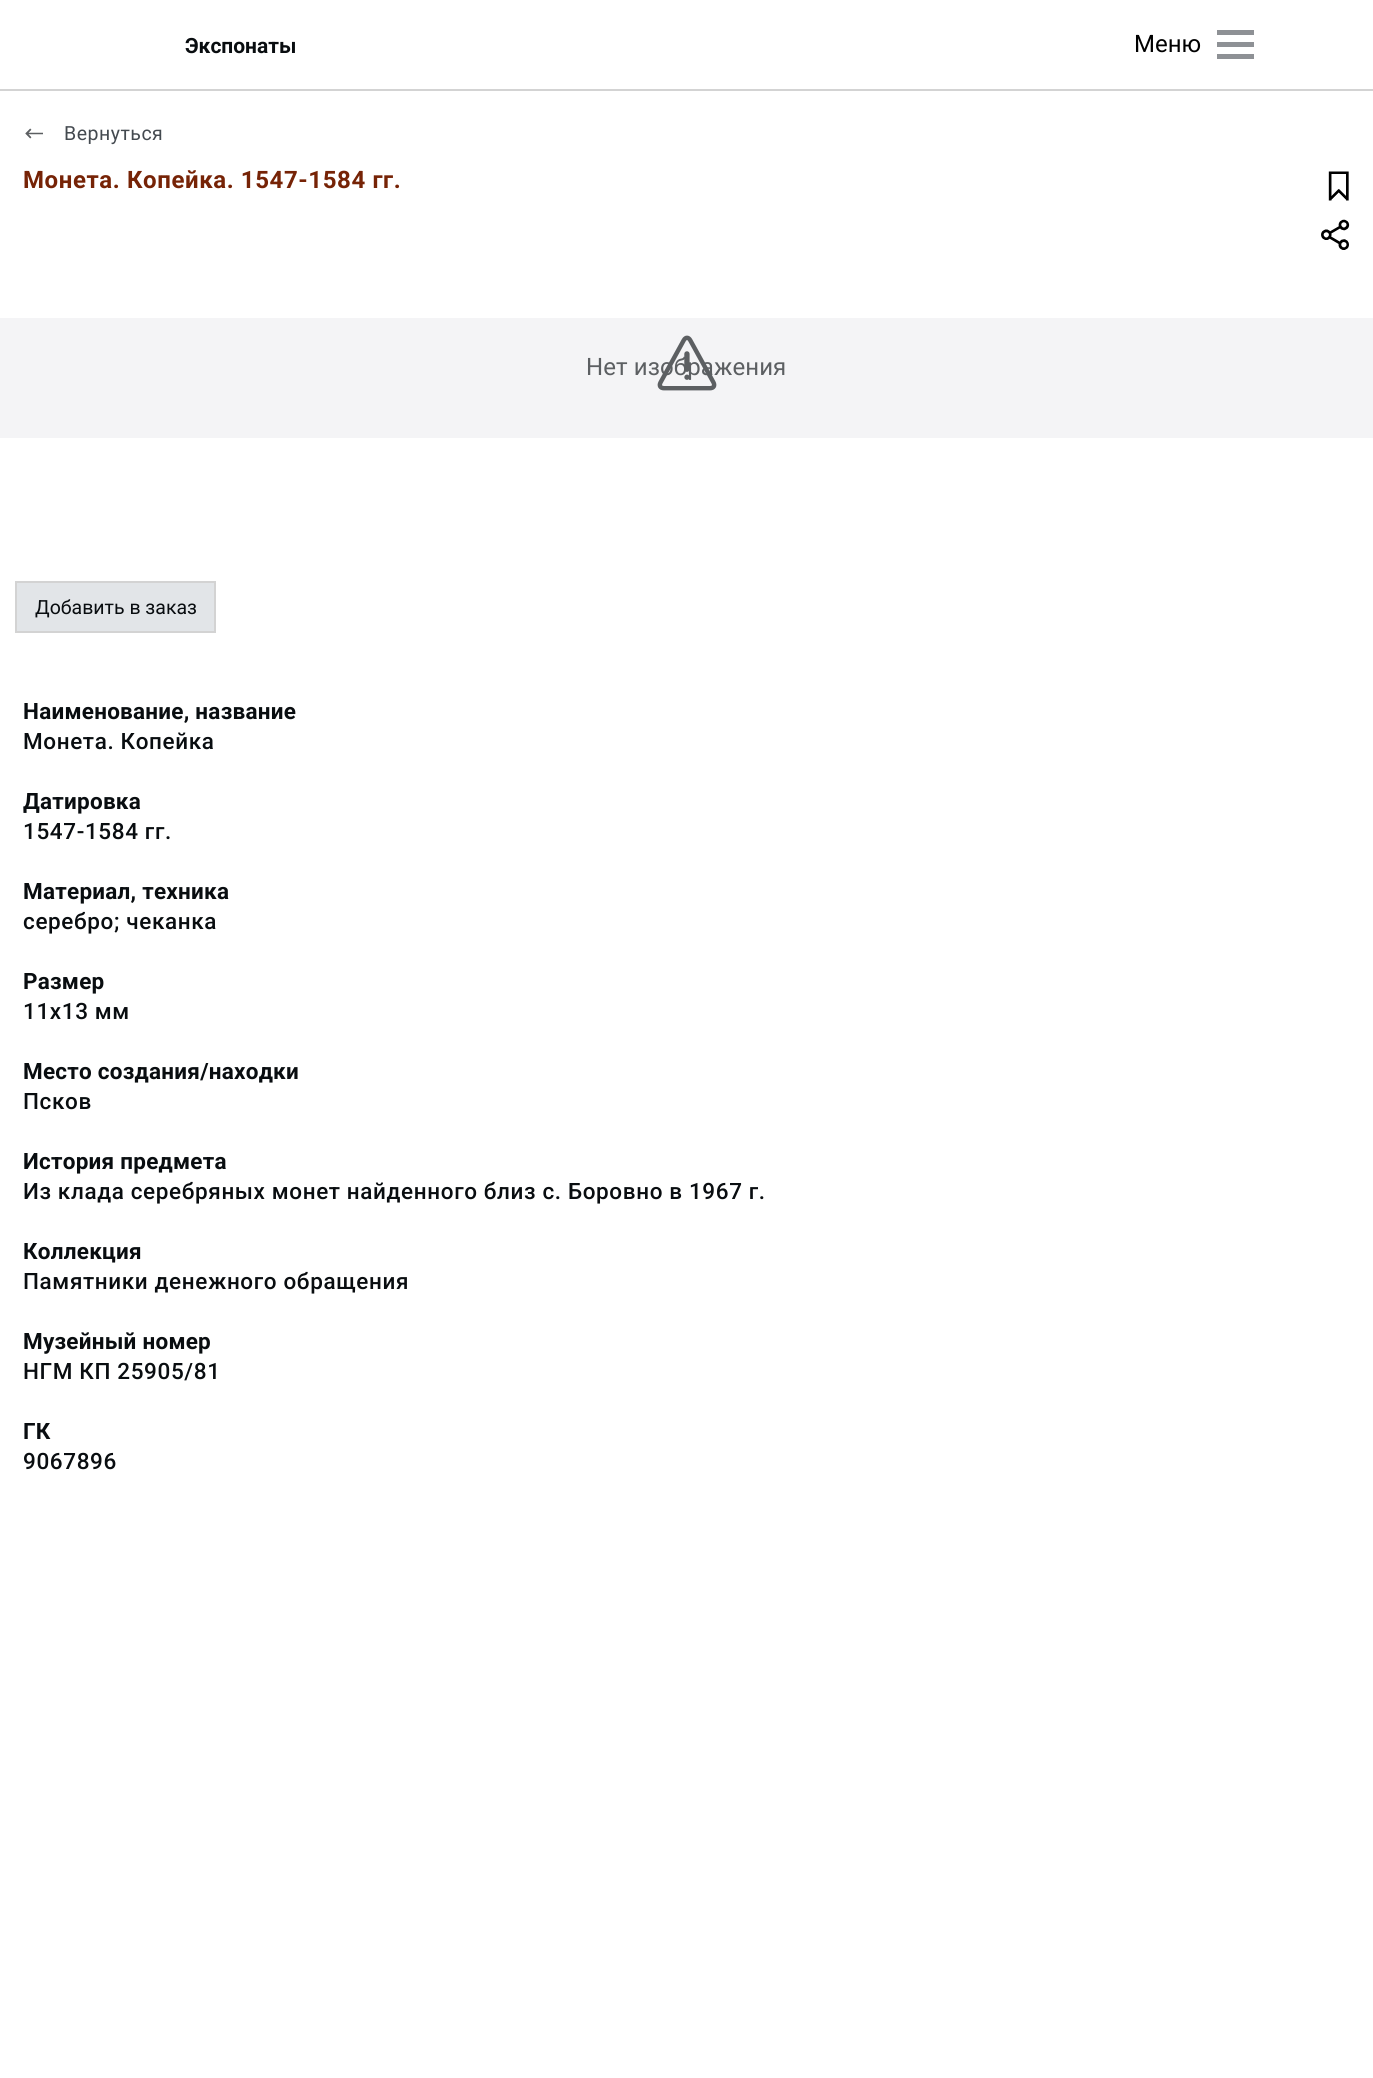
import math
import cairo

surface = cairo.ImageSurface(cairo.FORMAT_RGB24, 1373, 2078)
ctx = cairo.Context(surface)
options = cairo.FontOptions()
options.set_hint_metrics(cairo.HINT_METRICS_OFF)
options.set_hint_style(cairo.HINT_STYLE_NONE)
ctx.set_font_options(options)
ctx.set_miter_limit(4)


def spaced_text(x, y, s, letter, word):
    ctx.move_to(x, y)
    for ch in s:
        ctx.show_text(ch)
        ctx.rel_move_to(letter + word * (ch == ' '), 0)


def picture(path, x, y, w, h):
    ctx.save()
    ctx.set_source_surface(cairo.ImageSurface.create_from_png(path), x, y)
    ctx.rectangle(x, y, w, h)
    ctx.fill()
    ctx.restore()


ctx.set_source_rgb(1, 1, 1)
ctx.paint()
ctx.set_source_rgb(0.827, 0.827, 0.827)
ctx.rectangle(0, 89, 1373, 2)
ctx.fill()
ctx.select_font_face("Roboto", cairo.FONT_SLANT_NORMAL, cairo.FONT_WEIGHT_BOLD)
ctx.set_font_size(21)
ctx.set_source_rgb(0.039, 0.051, 0.063)
ctx.move_to(185, 53)
ctx.show_text("Экспонаты")
ctx.set_source_rgb(0.557, 0.569, 0.584)
ctx.rectangle(1217, 30, 37, 5)
ctx.fill()
ctx.select_font_face("Roboto")
ctx.set_font_size(24)
ctx.set_source_rgb(0, 0, 0)
ctx.move_to(1134, 52)
ctx.show_text("Меню")
ctx.set_source_rgb(0.557, 0.569, 0.584)
ctx.rectangle(1217, 42, 37, 5)
ctx.fill()
ctx.rectangle(1217, 54, 37, 5)
ctx.fill()
picture("img1.png", 25, 128, 18, 11)
ctx.set_font_size(19.5)
ctx.set_source_rgb(0.267, 0.29, 0.314)
spaced_text(64, 140, "Вернуться", 0.5, 0)
ctx.select_font_face("Roboto", cairo.FONT_SLANT_NORMAL, cairo.FONT_WEIGHT_BOLD)
ctx.set_font_size(24)
ctx.set_source_rgb(0.463, 0.137, 0.024)
spaced_text(23, 188, "Монета. Копейка. 1547-1584 гг.", 0.6, 0)
ctx.set_source_rgb(0.957, 0.957, 0.961)
ctx.rectangle(0, 318, 1373, 120)
ctx.fill()
ctx.select_font_face("Roboto")
ctx.set_source_rgb(0.361, 0.373, 0.384)
spaced_text(586, 375, "Нет изображения", 0.1, 0)
picture("img2.png", 657, 335, 60, 56)
ctx.set_source_rgb(0.886, 0.898, 0.91)
ctx.rectangle(16, 582, 199, 50)
ctx.fill_preserve()
ctx.set_source_rgb(0.827, 0.827, 0.827)
ctx.stroke()
ctx.set_font_size(19.5)
ctx.set_source_rgb(0.039, 0.051, 0.063)
ctx.move_to(35, 614)
ctx.show_text("Добавить в заказ")
picture("img3.png", 1328, 171, 21, 30)
picture("img4.png", 1321, 219, 29, 31)
ctx.select_font_face("Roboto", cairo.FONT_SLANT_NORMAL, cairo.FONT_WEIGHT_BOLD)
ctx.set_font_size(22.5)
spaced_text(23, 719, "Наименование, название", 0.25, 0)
ctx.select_font_face("Roboto Medium")
spaced_text(23, 749, "Монета. Копейка", 0.63, 0)
ctx.save()
ctx.rectangle(23, 696, 1329, 810)
ctx.clip()
ctx.select_font_face("Roboto", cairo.FONT_SLANT_NORMAL, cairo.FONT_WEIGHT_BOLD)
spaced_text(23, 809, "Датировка", 0.25, 0)
ctx.restore()
spaced_text(23, 839, "1547-1584 гг.", 0.63, 0)
ctx.select_font_face("Roboto", cairo.FONT_SLANT_NORMAL, cairo.FONT_WEIGHT_BOLD)
spaced_text(23, 899, "Материал, техника", 0.25, 0)
ctx.select_font_face("Roboto Medium")
spaced_text(23, 929, "серебро; чеканка", 0.63, 0)
ctx.select_font_face("Roboto", cairo.FONT_SLANT_NORMAL, cairo.FONT_WEIGHT_BOLD)
spaced_text(23, 989, "Размер", 0.25, 0)
ctx.select_font_face("Roboto Medium")
spaced_text(23, 1019, "11х13 мм", 0.63, 0)
ctx.select_font_face("Roboto", cairo.FONT_SLANT_NORMAL, cairo.FONT_WEIGHT_BOLD)
spaced_text(23, 1079, "Место создания/находки", 0.25, 0)
ctx.select_font_face("Roboto Medium")
spaced_text(23, 1109, "Псков", 0.63, 0)
ctx.select_font_face("Roboto", cairo.FONT_SLANT_NORMAL, cairo.FONT_WEIGHT_BOLD)
spaced_text(23, 1169, "История предмета", 0.25, 0)
ctx.select_font_face("Roboto Medium")
spaced_text(23, 1199, "Из клада серебряных монет найденного близ с. Боровно в 1967 г.", 0.63, 0)
ctx.select_font_face("Roboto", cairo.FONT_SLANT_NORMAL, cairo.FONT_WEIGHT_BOLD)
spaced_text(23, 1259, "Коллекция", 0.25, 0)
ctx.select_font_face("Roboto Medium")
spaced_text(23, 1289, "Памятники денежного обращения", 0.63, 0)
ctx.select_font_face("Roboto", cairo.FONT_SLANT_NORMAL, cairo.FONT_WEIGHT_BOLD)
spaced_text(23, 1349, "Музейный номер", 0.25, 0)
ctx.select_font_face("Roboto Medium")
spaced_text(23, 1379, "НГМ КП 25905/81", 0.63, 0)
ctx.select_font_face("Roboto", cairo.FONT_SLANT_NORMAL, cairo.FONT_WEIGHT_BOLD)
spaced_text(23, 1439, "ГК", 0.25, 0)
ctx.select_font_face("Roboto Medium")
spaced_text(23, 1469, "9067896", 0.63, 0)
surface.write_to_png("page.png")
